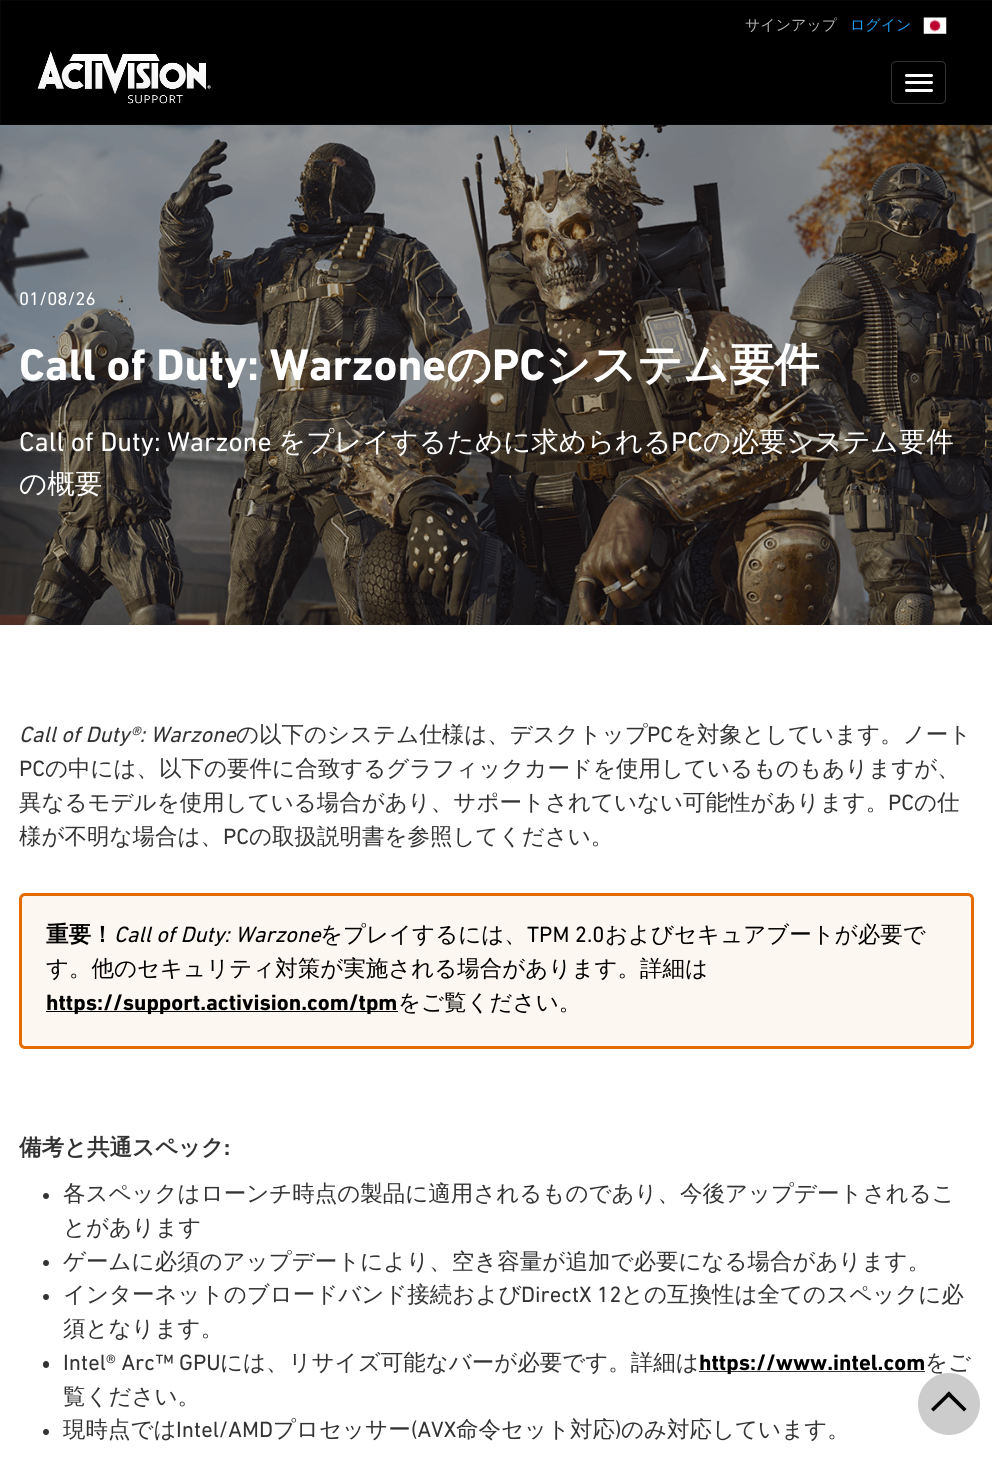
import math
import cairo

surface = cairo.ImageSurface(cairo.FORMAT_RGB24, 992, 1466)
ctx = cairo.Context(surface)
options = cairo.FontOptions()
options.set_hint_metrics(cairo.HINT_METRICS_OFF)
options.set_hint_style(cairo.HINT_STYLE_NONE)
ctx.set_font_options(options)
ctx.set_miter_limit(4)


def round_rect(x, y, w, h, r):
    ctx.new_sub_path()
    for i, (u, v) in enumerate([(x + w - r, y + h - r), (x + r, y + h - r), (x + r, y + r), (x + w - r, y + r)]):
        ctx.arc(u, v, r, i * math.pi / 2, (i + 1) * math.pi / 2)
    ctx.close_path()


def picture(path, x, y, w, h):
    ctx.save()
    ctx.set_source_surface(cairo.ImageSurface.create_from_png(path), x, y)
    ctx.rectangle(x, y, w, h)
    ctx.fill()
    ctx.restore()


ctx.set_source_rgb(1, 1, 1)
ctx.paint()
ctx.set_source_rgb(0, 0, 0)
ctx.rectangle(0.5, 0.5, 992, 124)
ctx.fill_preserve()
ctx.set_source_rgb(0.031, 0.031, 0.031)
ctx.set_line_width(1)
ctx.stroke()
ctx.select_font_face("WenQuanYi Zen Hei Medium")
ctx.set_font_size(15)
ctx.set_source_rgb(0.702, 0.714, 0.718)
ctx.move_to(745, 30)
ctx.show_text("サインアップ")
ctx.set_source_rgb(0.114, 0.608, 0.941)
ctx.move_to(850, 30)
ctx.show_text("ログイン")
picture("img1.png", 923, 17, 24, 17)
picture("img2.png", 37, 51, 174, 53)
round_rect(891.5, 61.5, 54, 42, 4.5)
ctx.set_source_rgb(0.2, 0.2, 0.2)
ctx.stroke()
ctx.set_source_rgb(1, 1, 1)
round_rect(905, 74, 28, 3, 1.5)
ctx.fill()
round_rect(905, 81, 28, 3, 1.5)
ctx.fill()
round_rect(905, 89, 28, 3, 1.5)
ctx.fill()
picture("img3.png", 0, 125, 992, 500)
ctx.select_font_face("DIN Next")
ctx.set_font_size(18.75)
ctx.move_to(19, 305)
ctx.show_text("01/08/26")
ctx.select_font_face("DIN Next", cairo.FONT_SLANT_NORMAL, cairo.FONT_WEIGHT_BOLD)
ctx.set_font_size(45)
ctx.move_to(19, 380)
ctx.show_text("Call of Duty: Warzone")
ctx.select_font_face("WenQuanYi Zen Hei", cairo.FONT_SLANT_NORMAL, cairo.FONT_WEIGHT_BOLD)
ctx.move_to(446, 380)
ctx.show_text("の")
ctx.select_font_face("DIN Next", cairo.FONT_SLANT_NORMAL, cairo.FONT_WEIGHT_BOLD)
ctx.move_to(492, 380)
ctx.show_text("PC")
ctx.select_font_face("WenQuanYi Zen Hei", cairo.FONT_SLANT_NORMAL, cairo.FONT_WEIGHT_BOLD)
ctx.move_to(545, 380)
ctx.show_text("システム要件")
ctx.select_font_face("DIN Next")
ctx.set_font_size(27.5)
ctx.move_to(19, 451)
ctx.show_text("Call of Duty: Warzone")
ctx.select_font_face("WenQuanYi Zen Hei Medium")
ctx.move_to(278, 451)
ctx.show_text("をプレイするために求められる")
ctx.select_font_face("DIN Next")
ctx.move_to(671, 451)
ctx.show_text("PC")
ctx.select_font_face("WenQuanYi Zen Hei Medium")
ctx.move_to(703, 451)
ctx.show_text("の必要システム要件")
ctx.move_to(19, 493)
ctx.show_text("の概要")
ctx.select_font_face("DIN Next", cairo.FONT_SLANT_ITALIC)
ctx.set_font_size(22.5)
ctx.set_source_rgb(0.2, 0.2, 0.2)
ctx.move_to(19, 742)
ctx.show_text("Call of Duty®: Warzone")
ctx.select_font_face("WenQuanYi Zen Hei Medium")
ctx.move_to(236, 742)
ctx.show_text("の以下のシステム仕様は、デスクトップ")
ctx.select_font_face("DIN Next")
ctx.move_to(647, 742)
ctx.show_text("PC")
ctx.select_font_face("WenQuanYi Zen Hei Medium")
ctx.move_to(674, 742)
ctx.show_text("を対象としています。ノート")
ctx.select_font_face("DIN Next")
ctx.move_to(19, 776)
ctx.show_text("PC")
ctx.select_font_face("WenQuanYi Zen Hei Medium")
ctx.move_to(45, 776)
ctx.show_text("の中には、以下の要件に合致するグラフィックカードを使用しているものもありますが、")
ctx.move_to(19, 810)
ctx.show_text("異なるモデルを使用している場合があり、サポートされていない可能性があります。")
ctx.select_font_face("DIN Next")
ctx.move_to(888, 810)
ctx.show_text("PC")
ctx.select_font_face("WenQuanYi Zen Hei Medium")
ctx.move_to(914, 810)
ctx.show_text("の仕")
ctx.move_to(19, 844)
ctx.show_text("様が不明な場合は、")
ctx.select_font_face("DIN Next")
ctx.move_to(223, 844)
ctx.show_text("PC")
ctx.select_font_face("WenQuanYi Zen Hei Medium")
ctx.move_to(249, 844)
ctx.show_text("の取扱説明書を参照してください。")
ctx.set_source_rgb(0.992, 0.965, 0.945)
round_rect(20.5, 894.5, 952, 153, 4.5)
ctx.fill_preserve()
ctx.set_source_rgb(0.898, 0.416, 0)
ctx.set_line_width(3)
ctx.stroke()
ctx.select_font_face("WenQuanYi Zen Hei", cairo.FONT_SLANT_NORMAL, cairo.FONT_WEIGHT_BOLD)
ctx.set_source_rgb(0, 0, 0)
ctx.move_to(46, 942)
ctx.show_text("重要！")
ctx.select_font_face("DIN Next", cairo.FONT_SLANT_ITALIC)
ctx.move_to(114, 942)
ctx.show_text("Call of Duty: Warzone")
ctx.select_font_face("WenQuanYi Zen Hei Medium")
ctx.move_to(320, 942)
ctx.show_text("をプレイするには、")
ctx.select_font_face("DIN Next")
ctx.move_to(527, 942)
ctx.show_text("TPM 2.0")
ctx.select_font_face("WenQuanYi Zen Hei Medium")
ctx.move_to(605, 942)
ctx.show_text("およびセキュアブートが必要で")
ctx.move_to(46, 976)
ctx.show_text("す。他のセキュリティ対策が実施される場合があります。詳細は")
ctx.rectangle(46, 1011, 352, 1)
ctx.fill()
ctx.select_font_face("DIN Next", cairo.FONT_SLANT_NORMAL, cairo.FONT_WEIGHT_BOLD)
ctx.move_to(46, 1010)
ctx.show_text("https://support.activision.com/tpm")
ctx.select_font_face("WenQuanYi Zen Hei Medium")
ctx.move_to(398, 1010)
ctx.show_text("をご覧ください。")
ctx.select_font_face("WenQuanYi Zen Hei", cairo.FONT_SLANT_NORMAL, cairo.FONT_WEIGHT_BOLD)
ctx.set_source_rgb(0.2, 0.2, 0.2)
ctx.move_to(19, 1155)
ctx.show_text("備考と共通スペック")
ctx.select_font_face("DIN Next", cairo.FONT_SLANT_NORMAL, cairo.FONT_WEIGHT_BOLD)
ctx.move_to(224, 1155)
ctx.show_text(":")
ctx.new_path()
ctx.arc(46, 1196, 3, 0, 2 * math.pi)
ctx.fill()
ctx.select_font_face("WenQuanYi Zen Hei Medium")
ctx.move_to(63, 1201)
ctx.show_text("各スペックはローンチ時点の製品に適用されるものであり、今後アップデートされるこ")
ctx.move_to(63, 1235)
ctx.show_text("とがあります")
ctx.new_path()
ctx.arc(46, 1263, 3, 0, 2 * math.pi)
ctx.fill()
ctx.move_to(63, 1269)
ctx.show_text("ゲームに必須のアップデートにより、空き容量が追加で必要になる場合があります。")
ctx.new_path()
ctx.arc(46, 1297, 3, 0, 2 * math.pi)
ctx.fill()
ctx.move_to(63, 1302)
ctx.show_text("インターネットのブロードバンド接続および")
ctx.select_font_face("DIN Next")
ctx.move_to(521, 1302)
ctx.show_text("DirectX 12")
ctx.select_font_face("WenQuanYi Zen Hei Medium")
ctx.move_to(621, 1302)
ctx.show_text("との互換性は全てのスペックに必")
ctx.move_to(63, 1336)
ctx.show_text("須となります。")
round_rect(43, 1361, 6, 7, 3)
ctx.fill()
ctx.select_font_face("DIN Next")
ctx.move_to(63, 1370)
ctx.show_text("Intel® Arc™ GPU")
ctx.select_font_face("WenQuanYi Zen Hei Medium")
ctx.move_to(220, 1370)
ctx.show_text("には、リサイズ可能なバーが必要です。詳細は")
ctx.rectangle(699, 1371, 226, 1)
ctx.fill()
ctx.select_font_face("DIN Next", cairo.FONT_SLANT_NORMAL, cairo.FONT_WEIGHT_BOLD)
ctx.set_source_rgb(0, 0, 0)
ctx.move_to(699, 1370)
ctx.show_text("https://www.intel.com")
ctx.select_font_face("WenQuanYi Zen Hei Medium")
ctx.set_source_rgb(0.2, 0.2, 0.2)
ctx.move_to(925, 1370)
ctx.show_text("をご")
ctx.move_to(63, 1404)
ctx.show_text("覧ください。")
ctx.new_path()
ctx.arc(46, 1432, 3, 0, 2 * math.pi)
ctx.fill()
ctx.move_to(63, 1437)
ctx.show_text("現時点では")
ctx.select_font_face("DIN Next")
ctx.move_to(176, 1437)
ctx.show_text("Intel/AMD")
ctx.select_font_face("WenQuanYi Zen Hei Medium")
ctx.move_to(273, 1437)
ctx.show_text("プロセッサー")
ctx.select_font_face("DIN Next")
ctx.move_to(411, 1437)
ctx.show_text("(AVX")
ctx.select_font_face("WenQuanYi Zen Hei Medium")
ctx.move_to(456, 1437)
ctx.show_text("命令セット対応")
ctx.select_font_face("DIN Next")
ctx.move_to(615, 1437)
ctx.show_text(")")
ctx.select_font_face("WenQuanYi Zen Hei Medium")
ctx.move_to(621, 1437)
ctx.show_text("のみ対応しています。")
ctx.set_source_rgb(0.8, 0.8, 0.8)
ctx.new_path()
ctx.arc(949, 1404, 31, 0, 2 * math.pi)
ctx.fill()
ctx.set_source_rgb(0, 0, 0)
ctx.new_path()
ctx.move_to(949, 1391.5)
ctx.line_to(966.5, 1409)
ctx.line_to(964, 1411.5)
ctx.line_to(946, 1394)
ctx.close_path()
ctx.fill()
ctx.new_path()
ctx.move_to(949, 1391.5)
ctx.line_to(951.5, 1394)
ctx.line_to(933.5, 1411.5)
ctx.line_to(931, 1409)
ctx.close_path()
ctx.fill()
surface.write_to_png("page.png")
